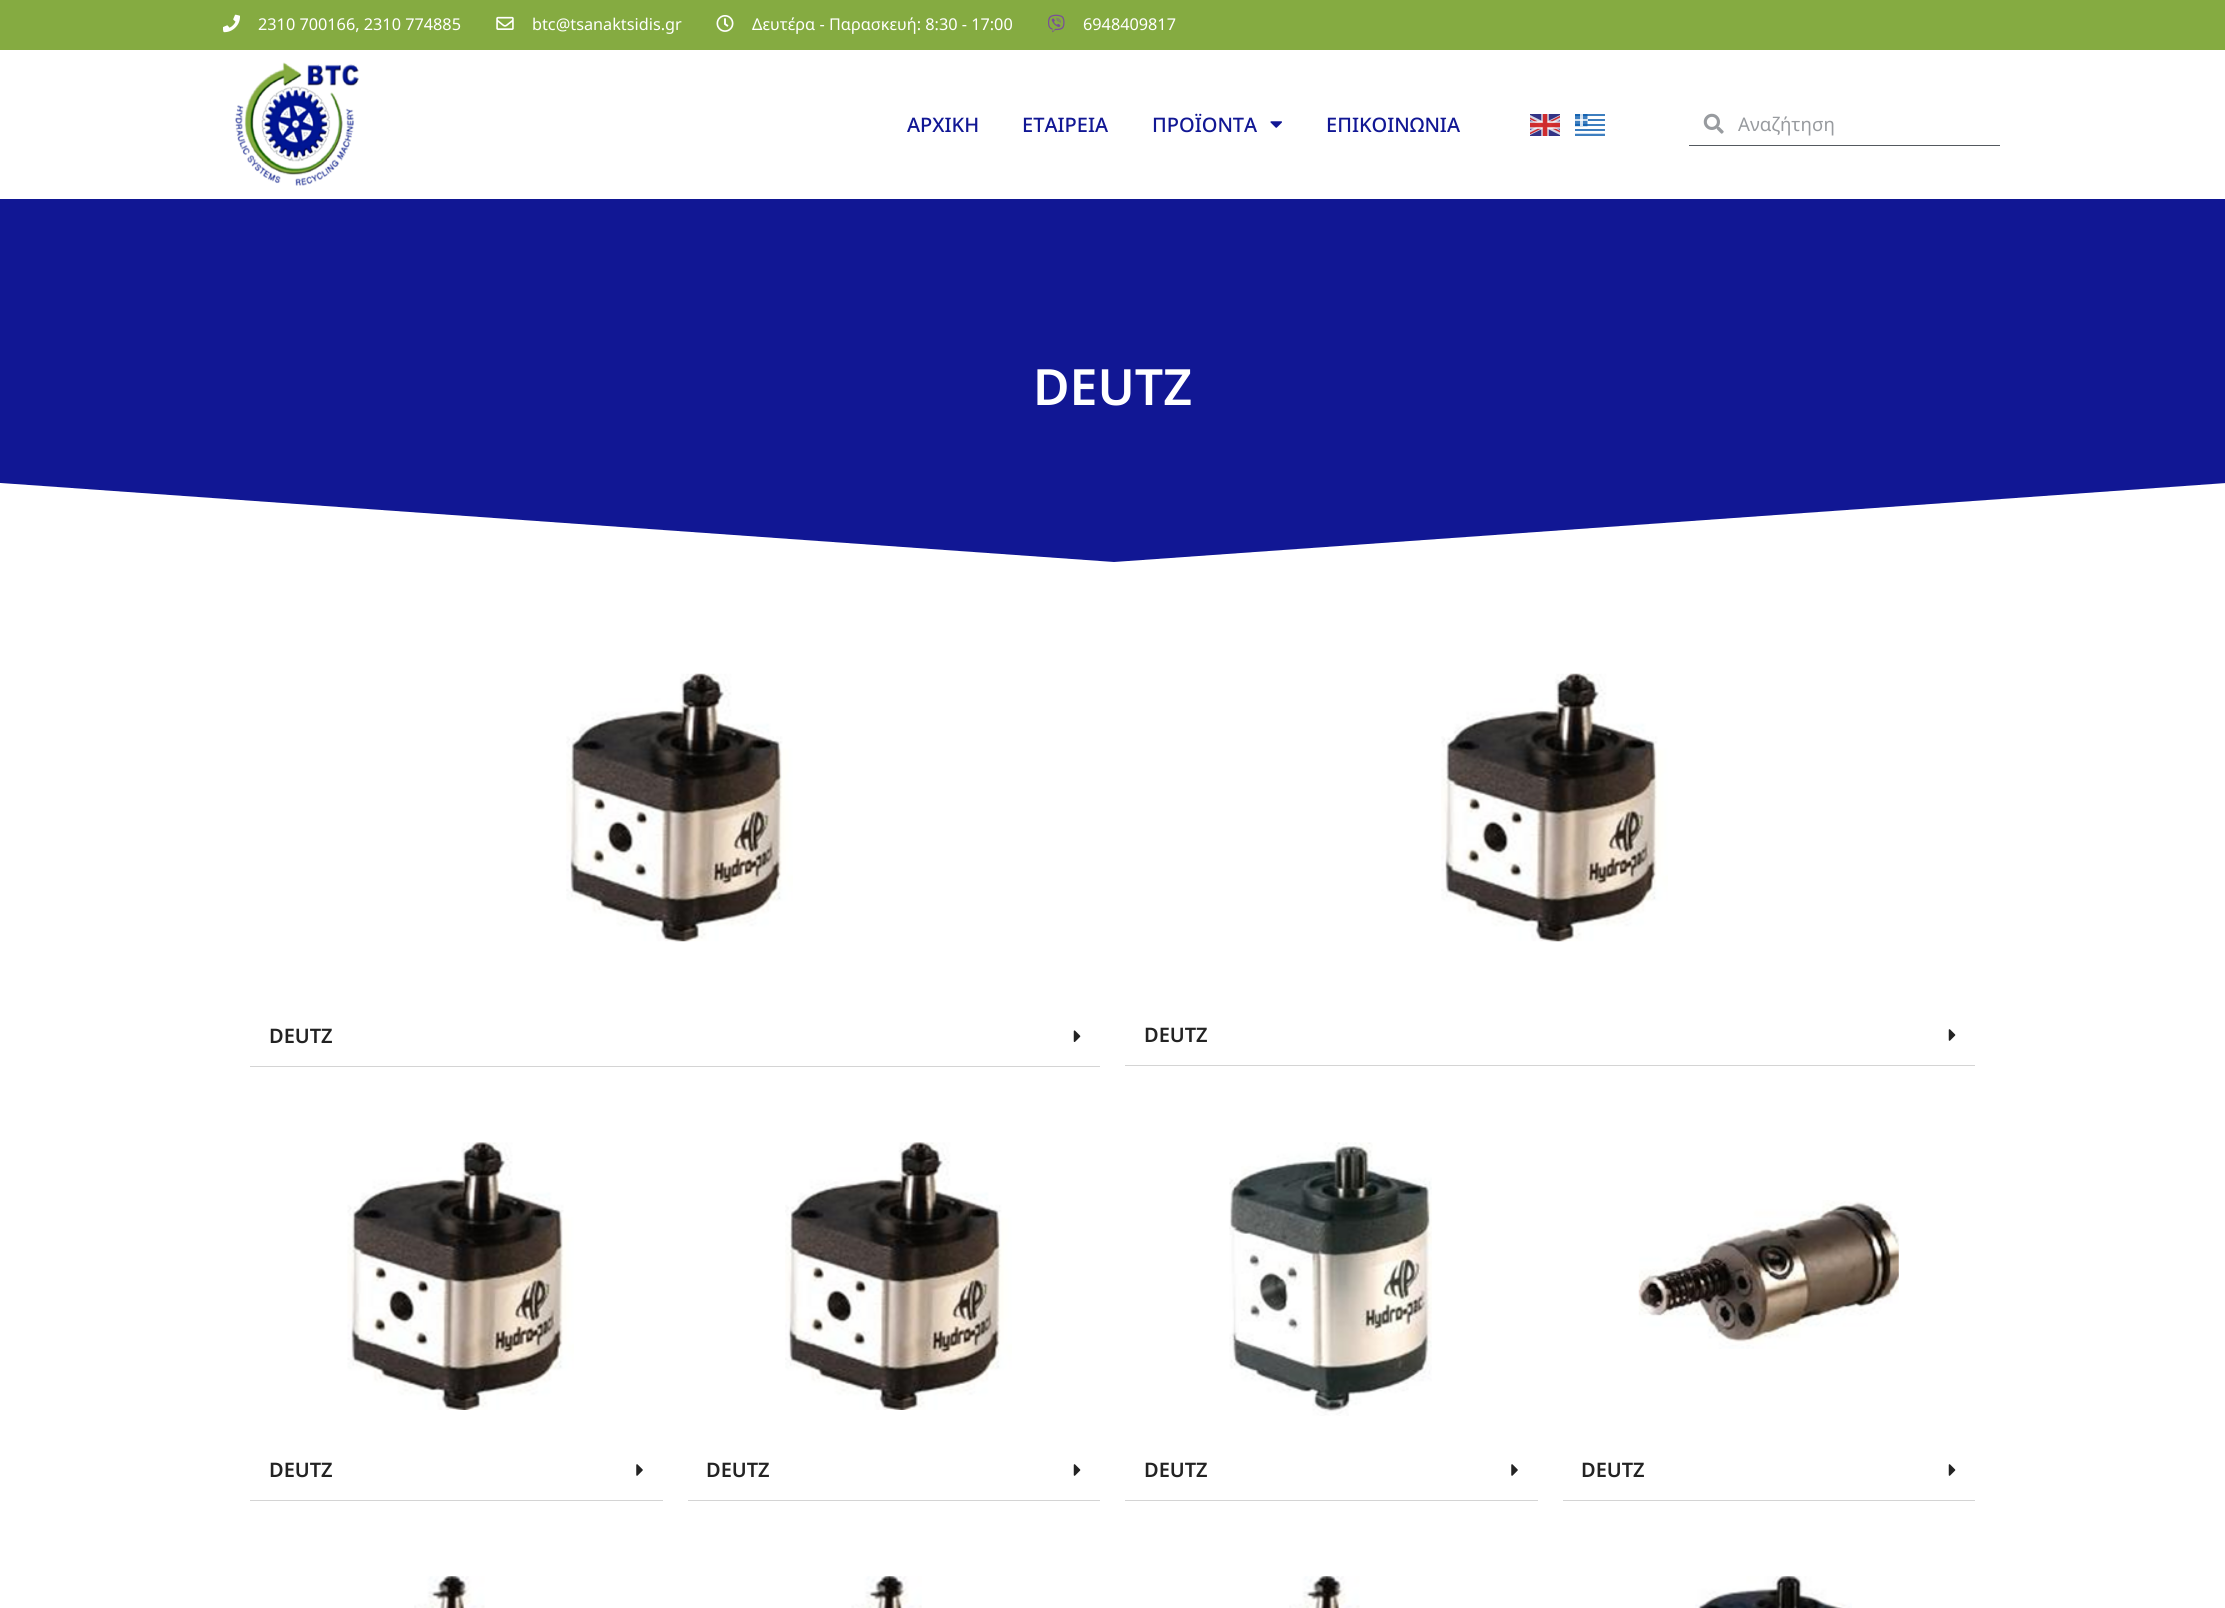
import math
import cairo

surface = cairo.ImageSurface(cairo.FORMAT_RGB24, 2225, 1608)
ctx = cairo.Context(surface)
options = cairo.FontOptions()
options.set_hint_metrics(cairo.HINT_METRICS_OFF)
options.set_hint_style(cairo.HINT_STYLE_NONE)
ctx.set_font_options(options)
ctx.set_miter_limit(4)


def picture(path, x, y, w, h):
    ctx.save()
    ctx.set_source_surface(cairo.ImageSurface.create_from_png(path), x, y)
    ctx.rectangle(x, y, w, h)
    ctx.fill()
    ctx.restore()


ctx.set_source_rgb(1, 1, 1)
ctx.paint()
ctx.set_source_rgb(0.522, 0.671, 0.255)
ctx.rectangle(0, 0, 2225, 50)
ctx.fill()
picture("img1.png", 223, 14, 17, 19)
ctx.select_font_face("Noto Sans")
ctx.set_font_size(16.25)
ctx.set_source_rgb(1, 1, 1)
ctx.move_to(258, 30)
ctx.show_text("2310 700166, 2310 774885")
picture("img2.png", 496, 16, 18, 14)
ctx.move_to(532, 30)
ctx.show_text("btc@tsanaktsidis.gr")
picture("img3.png", 716, 15, 18, 17)
ctx.move_to(752, 30)
ctx.show_text("Δευτέρα - Παρασκευή: 8:30 - 17:00")
picture("img4.png", 1048, 14, 17, 19)
ctx.move_to(1083, 30)
ctx.show_text("6948409817")
picture("img5.png", 235, 62, 124, 124)
ctx.select_font_face("Noto Sans Medium")
ctx.set_font_size(20)
ctx.set_source_rgb(0.067, 0.09, 0.58)
ctx.move_to(907, 132)
ctx.show_text("ΑΡΧΙΚΗ")
ctx.move_to(1022, 132)
ctx.show_text("ΕΤΑΙΡΕΙΑ")
ctx.move_to(1152, 132)
ctx.show_text("ΠΡΟΪΟΝΤΑ")
picture("img6.png", 1270, 121, 12, 7)
ctx.move_to(1326, 132)
ctx.show_text("ΕΠΙΚΟΙΝΩΝΙΑ")
picture("img7.png", 1530, 114, 30, 22)
picture("img8.png", 1575, 114, 30, 22)
ctx.set_source_rgb(0.329, 0.349, 0.373)
ctx.rectangle(1689, 145, 311, 1)
ctx.fill()
picture("img9.png", 1703, 113, 21, 21)
ctx.select_font_face("Noto Sans")
ctx.set_font_size(18.75)
ctx.set_source_rgb(0.596, 0.608, 0.624)
ctx.move_to(1738, 131)
ctx.show_text("Αναζήτηση")
ctx.set_source_rgb(0.067, 0.09, 0.58)
ctx.rectangle(0, 199, 2225, 363)
ctx.fill()
ctx.select_font_face("Noto Sans SemiBold")
ctx.set_font_size(50)
ctx.set_source_rgb(1, 1, 1)
ctx.move_to(1033, 405)
ctx.show_text("DEUTZ")
ctx.new_path()
ctx.move_to(1114, 562)
ctx.line_to(-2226, 325)
ctx.line_to(-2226, 575)
ctx.line_to(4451, 575)
ctx.line_to(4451, 325)
ctx.close_path()
ctx.fill()
picture("img10.png", 566, 673, 227, 269)
ctx.set_source_rgb(0.831, 0.831, 0.831)
ctx.rectangle(250, 1066, 850, 1)
ctx.fill()
ctx.set_font_size(20)
ctx.set_source_rgb(0.137, 0.137, 0.137)
ctx.move_to(269, 1043)
ctx.show_text("DEUTZ")
picture("img11.png", 1073, 1030, 8, 12)
picture("img12.png", 1441, 673, 227, 269)
ctx.set_source_rgb(0.831, 0.831, 0.831)
ctx.rectangle(1125, 1065, 850, 1)
ctx.fill()
ctx.set_source_rgb(0.137, 0.137, 0.137)
ctx.move_to(1144, 1042)
ctx.show_text("DEUTZ")
picture("img13.png", 1948, 1029, 8, 12)
picture("img14.png", 347, 1142, 227, 268)
ctx.set_source_rgb(0.831, 0.831, 0.831)
ctx.rectangle(250, 1500, 413, 1)
ctx.fill()
ctx.set_source_rgb(0.137, 0.137, 0.137)
ctx.move_to(269, 1477)
ctx.show_text("DEUTZ")
picture("img15.png", 636, 1464, 7, 12)
picture("img16.png", 785, 1142, 227, 268)
ctx.set_source_rgb(0.831, 0.831, 0.831)
ctx.rectangle(688, 1500, 412, 1)
ctx.fill()
ctx.set_source_rgb(0.137, 0.137, 0.137)
ctx.move_to(706, 1477)
ctx.show_text("DEUTZ")
picture("img13.png", 1073, 1464, 8, 12)
picture("img17.png", 1229, 1142, 203, 274)
ctx.set_source_rgb(0.831, 0.831, 0.831)
ctx.rectangle(1125, 1500, 413, 1)
ctx.fill()
ctx.set_source_rgb(0.137, 0.137, 0.137)
ctx.move_to(1144, 1477)
ctx.show_text("DEUTZ")
picture("img15.png", 1511, 1464, 7, 12)
picture("img18.png", 1638, 1200, 261, 149)
ctx.set_source_rgb(0.831, 0.831, 0.831)
ctx.rectangle(1563, 1500, 412, 1)
ctx.fill()
ctx.set_source_rgb(0.137, 0.137, 0.137)
ctx.move_to(1581, 1477)
ctx.show_text("DEUTZ")
picture("img13.png", 1948, 1464, 8, 12)
picture("img19.png", 414, 1576, 71, 32)
picture("img20.png", 851, 1576, 71, 32)
picture("img21.png", 1289, 1576, 71, 32)
picture("img22.png", 1695, 1576, 157, 32)
surface.write_to_png("page.png")
